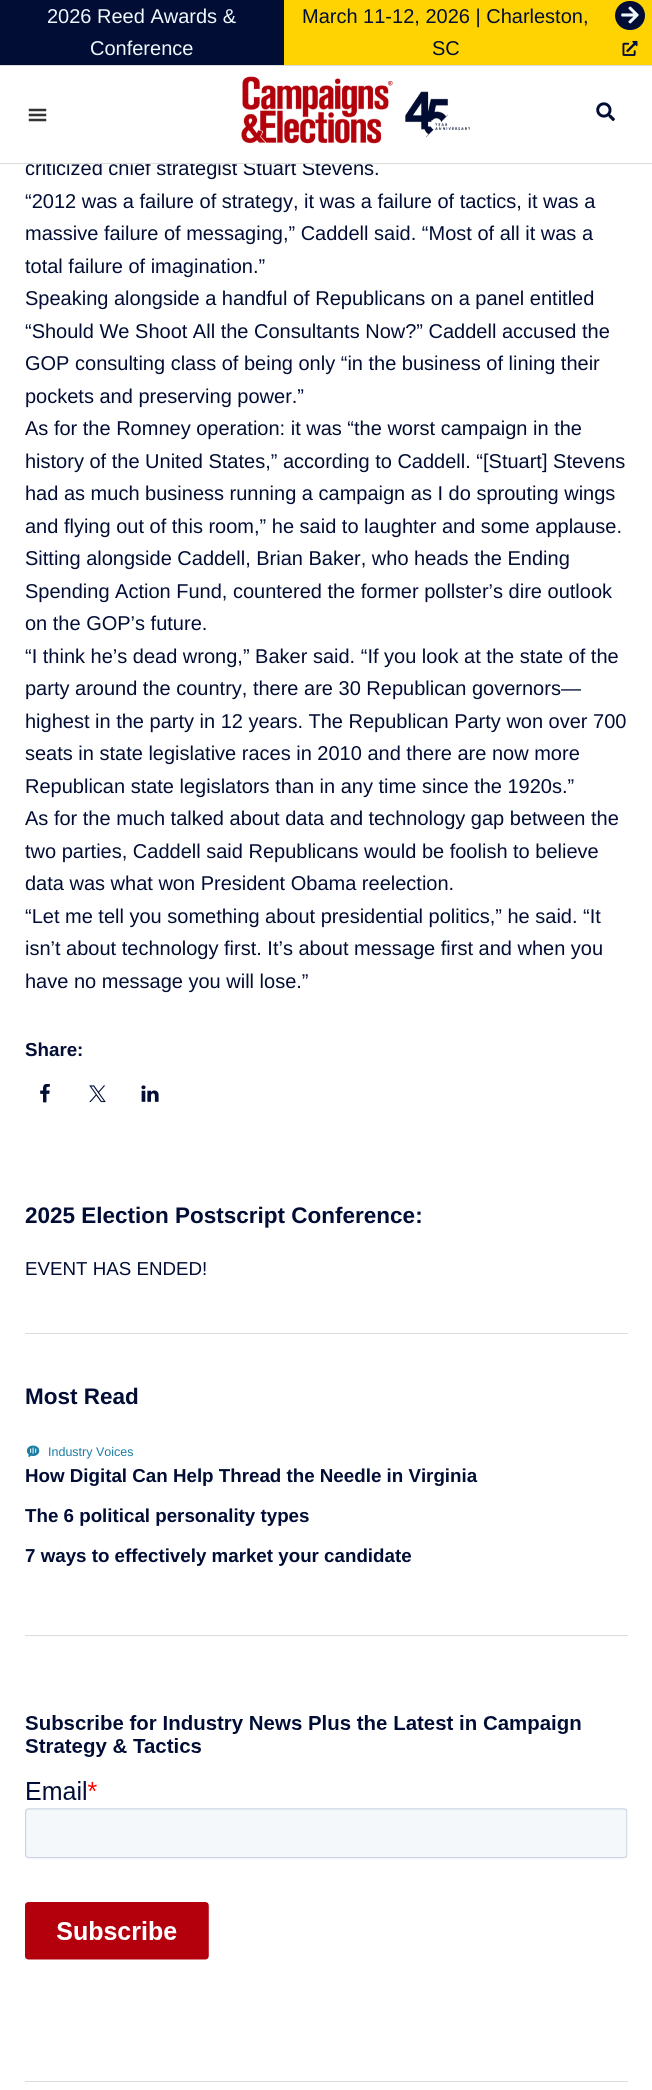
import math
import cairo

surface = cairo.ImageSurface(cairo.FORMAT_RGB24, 652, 2090)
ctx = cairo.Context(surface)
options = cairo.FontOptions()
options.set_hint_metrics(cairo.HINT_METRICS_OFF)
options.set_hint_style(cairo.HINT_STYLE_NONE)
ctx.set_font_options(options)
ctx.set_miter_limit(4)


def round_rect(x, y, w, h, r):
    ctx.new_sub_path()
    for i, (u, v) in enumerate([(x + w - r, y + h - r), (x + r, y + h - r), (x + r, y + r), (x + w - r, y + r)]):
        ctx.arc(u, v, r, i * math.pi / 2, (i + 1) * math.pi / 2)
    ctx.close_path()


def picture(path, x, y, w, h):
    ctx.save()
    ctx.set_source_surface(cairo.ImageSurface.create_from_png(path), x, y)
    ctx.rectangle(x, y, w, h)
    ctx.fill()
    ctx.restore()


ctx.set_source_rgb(1, 1, 1)
ctx.paint()
ctx.set_source_rgb(1, 0.827, 0.008)
ctx.rectangle(284, 0, 368, 65)
ctx.fill()
ctx.set_source_rgb(0.004, 0.051, 0.204)
ctx.rectangle(0, 0, 284, 65)
ctx.fill()
ctx.select_font_face("Liberation Sans")
ctx.set_font_size(20)
ctx.set_source_rgb(0.941, 0.973, 1)
ctx.move_to(47, 23)
ctx.show_text("2026 Reed Awards &")
ctx.move_to(90, 55)
ctx.show_text("Conference")
ctx.set_source_rgb(0.004, 0.051, 0.204)
ctx.move_to(302, 23)
ctx.show_text("March 11-12, 2026 | Charleston,")
ctx.move_to(432, 55)
ctx.show_text("SC")
round_rect(615, 1, 30, 29, 14.5)
ctx.fill()
picture("img1.png", 621, 6, 18, 18)
picture("img2.png", 622, 40, 16, 16)
ctx.move_to(25, 175)
ctx.show_text("criticized chief strategist Stuart Stevens.")
ctx.set_source_rgb(1, 1, 1)
ctx.rectangle(43, 160, 276, 3)
ctx.fill()
ctx.set_source_rgb(0.863, 0.863, 0.863)
ctx.rectangle(0, 163, 652, 1)
ctx.fill()
ctx.rectangle(0, 65, 652, 1)
ctx.fill()
picture("img3.png", 28, 108, 19, 14)
picture("img4.png", 241, 76, 230, 68)
picture("img5.png", 596, 102, 19, 19)
ctx.rectangle(25, 2081, 603, 1)
ctx.fill()
ctx.set_source_rgb(0.004, 0.051, 0.204)
ctx.move_to(25, 208)
ctx.show_text("“2012 was a failure of strategy, it was a failure of tactics, it was a")
ctx.move_to(25, 240)
ctx.show_text("massive failure of messaging,” Caddell said. “Most of all it was a")
ctx.move_to(25, 273)
ctx.show_text("total failure of imagination.”")
ctx.move_to(25, 305)
ctx.show_text("Speaking alongside a handful of Republicans on a panel entitled")
ctx.move_to(25, 338)
ctx.show_text("“Should We Shoot All the Consultants Now?” Caddell accused the")
ctx.move_to(25, 370)
ctx.show_text("GOP consulting class of being only “in the business of lining their")
ctx.move_to(25, 403)
ctx.show_text("pockets and preserving power.”")
ctx.move_to(25, 435)
ctx.show_text("As for the Romney operation: it was “the worst campaign in the")
ctx.move_to(25, 468)
ctx.show_text("history of the United States,” according to Caddell. “[Stuart] Stevens")
ctx.move_to(25, 500)
ctx.show_text("had as much business running a campaign as I do sprouting wings")
ctx.move_to(25, 533)
ctx.show_text("and flying out of this room,” he said to laughter and some applause.")
ctx.move_to(25, 565)
ctx.show_text("Sitting alongside Caddell, Brian Baker, who heads the Ending")
ctx.move_to(25, 598)
ctx.show_text("Spending Action Fund, countered the former pollster’s dire outlook")
ctx.move_to(25, 630)
ctx.show_text("on the GOP’s future.")
ctx.move_to(25, 663)
ctx.show_text("“I think he’s dead wrong,” Baker said. “If you look at the state of the")
ctx.move_to(25, 695)
ctx.show_text("party around the country, there are 30 Republican governors—")
ctx.move_to(25, 728)
ctx.show_text("highest in the party in 12 years. The Republican Party won over 700")
ctx.move_to(25, 760)
ctx.show_text("seats in state legislative races in 2010 and there are now more")
ctx.move_to(25, 793)
ctx.show_text("Republican state legislators than in any time since the 1920s.”")
ctx.move_to(25, 825)
ctx.show_text("As for the much talked about data and technology gap between the")
ctx.move_to(25, 858)
ctx.show_text("two parties, Caddell said Republicans would be foolish to believe")
ctx.move_to(25, 890)
ctx.show_text("data was what won President Obama reelection.")
ctx.move_to(25, 923)
ctx.show_text("“Let me tell you something about presidential politics,” he said. “It")
ctx.move_to(25, 955)
ctx.show_text("isn’t about technology first. It’s about message first and when you")
ctx.move_to(25, 988)
ctx.show_text("have no message you will lose.”")
ctx.select_font_face("Liberation Sans", cairo.FONT_SLANT_NORMAL, cairo.FONT_WEIGHT_BOLD)
ctx.set_font_size(18.75)
ctx.move_to(25, 1056)
ctx.show_text("Share:")
picture("img6.png", 40, 1084, 10, 19)
picture("img7.png", 89, 1085, 17, 18)
picture("img8.png", 141, 1085, 18, 17)
ctx.set_source_rgb(0.863, 0.863, 0.863)
ctx.rectangle(25, 1333, 603, 1)
ctx.fill()
ctx.set_font_size(22.5)
ctx.set_source_rgb(0.004, 0.051, 0.204)
ctx.move_to(25, 1223)
ctx.show_text("2025 Election Postscript Conference:")
ctx.select_font_face("Liberation Sans")
ctx.set_font_size(18.75)
ctx.move_to(25, 1275)
ctx.show_text("EVENT HAS ENDED!")
ctx.set_source_rgb(0.863, 0.863, 0.863)
ctx.rectangle(25, 1635, 603, 1)
ctx.fill()
ctx.select_font_face("Liberation Sans", cairo.FONT_SLANT_NORMAL, cairo.FONT_WEIGHT_BOLD)
ctx.set_font_size(22.5)
ctx.set_source_rgb(0.004, 0.051, 0.204)
ctx.move_to(25, 1404)
ctx.show_text("Most Read")
picture("img9.png", 26, 1445, 14, 12)
ctx.select_font_face("Liberation Sans")
ctx.set_font_size(12.5)
ctx.set_source_rgb(0.098, 0.486, 0.639)
ctx.move_to(48, 1456)
ctx.show_text("Industry Voices")
ctx.select_font_face("Liberation Sans", cairo.FONT_SLANT_NORMAL, cairo.FONT_WEIGHT_BOLD)
ctx.set_font_size(18.75)
ctx.set_source_rgb(0.004, 0.051, 0.204)
ctx.move_to(25, 1482)
ctx.show_text("How Digital Can Help Thread the Needle in Virginia")
ctx.move_to(25, 1522)
ctx.show_text("The 6 political personality types")
ctx.move_to(25, 1562)
ctx.show_text("7 ways to effectively market your candidate")
picture("img10.png", 25, 1715, 603, 245)
surface.write_to_png("page.png")
